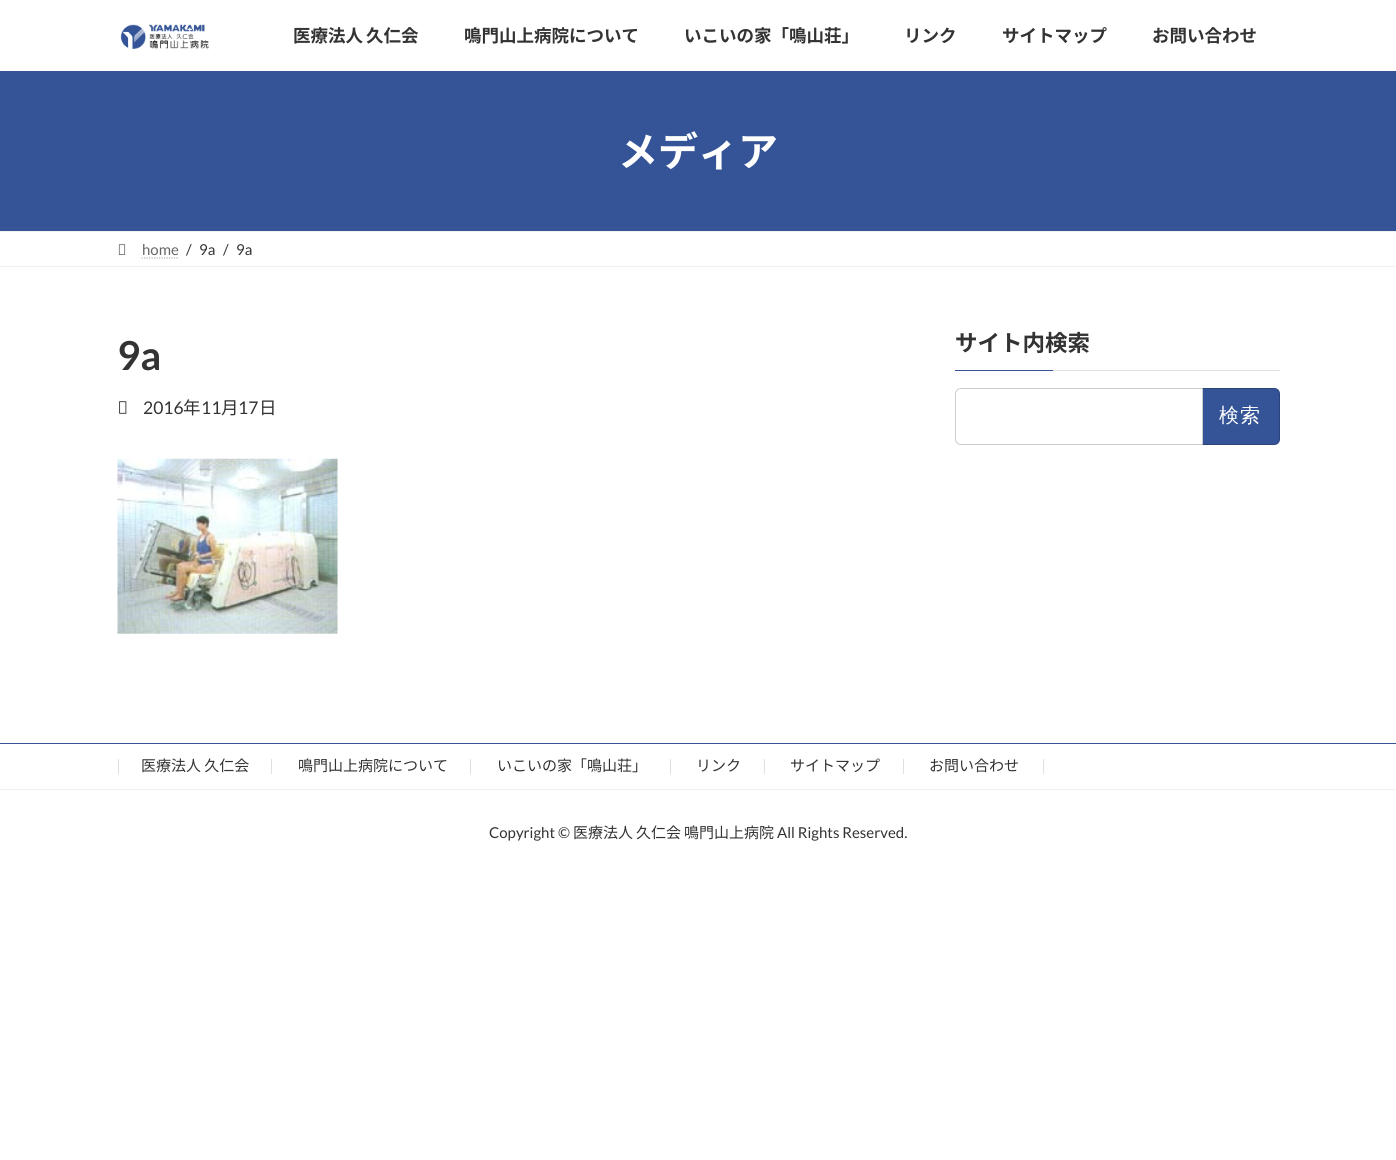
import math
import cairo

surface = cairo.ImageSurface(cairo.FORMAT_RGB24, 1396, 1160)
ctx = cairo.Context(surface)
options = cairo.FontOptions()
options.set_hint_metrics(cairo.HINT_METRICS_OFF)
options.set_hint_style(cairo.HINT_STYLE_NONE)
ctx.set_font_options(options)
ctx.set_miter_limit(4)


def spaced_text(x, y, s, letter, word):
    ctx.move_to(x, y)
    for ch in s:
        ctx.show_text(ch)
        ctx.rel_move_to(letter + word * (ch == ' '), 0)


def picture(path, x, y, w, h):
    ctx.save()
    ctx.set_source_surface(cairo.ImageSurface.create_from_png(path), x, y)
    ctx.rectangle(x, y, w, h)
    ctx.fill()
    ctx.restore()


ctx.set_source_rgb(1, 1, 1)
ctx.paint()
picture("img1.png", 120, 24, 89, 25)
ctx.select_font_face("Noto Sans JP", cairo.FONT_SLANT_NORMAL, cairo.FONT_WEIGHT_BOLD)
ctx.set_font_size(17.5)
ctx.set_source_rgb(0.2, 0.2, 0.2)
spaced_text(293, 42, "医療法人 久仁会", 0, -1)
ctx.move_to(464, 42)
ctx.show_text("鳴門山上病院について")
ctx.move_to(684, 42)
ctx.show_text("いこいの家「鳴山荘」")
ctx.move_to(904, 42)
ctx.show_text("リンク")
ctx.move_to(1002, 42)
ctx.show_text("サイトマップ")
ctx.move_to(1152, 42)
ctx.show_text("お問い合わせ")
ctx.set_source_rgb(0.204, 0.329, 0.592)
ctx.rectangle(0, 71, 1396, 160)
ctx.fill()
ctx.set_font_size(40)
ctx.set_source_rgb(1, 1, 1)
ctx.move_to(618, 166)
ctx.show_text("メディア")
ctx.set_source_rgb(0.941, 0.941, 0.941)
ctx.rectangle(0, 231, 1396, 1)
ctx.fill()
ctx.rectangle(0, 266, 1396, 1)
ctx.fill()
picture("img2.png", 118, 244, 8, 11)
ctx.select_font_face("Lato")
ctx.set_font_size(15)
ctx.set_source_rgb(0.4, 0.4, 0.4)
ctx.move_to(142, 255)
ctx.show_text("home")
ctx.new_path()
ctx.move_to(141.5, 258)
ctx.line_to(178.5, 258)
ctx.set_source_rgb(0.702, 0.702, 0.702)
ctx.set_line_width(1.2)
ctx.set_dash([1.25, 1.25])
ctx.stroke()
ctx.set_source_rgb(0.2, 0.2, 0.2)
ctx.move_to(186, 255)
ctx.show_text("/")
ctx.move_to(199, 255)
ctx.show_text("9a")
ctx.move_to(223, 255)
ctx.show_text("/")
ctx.move_to(236, 255)
ctx.show_text("9a")
ctx.select_font_face("Lato", cairo.FONT_SLANT_NORMAL, cairo.FONT_WEIGHT_BOLD)
ctx.set_font_size(40)
ctx.move_to(117, 370)
ctx.show_text("9a")
picture("img3.png", 119, 401, 8, 13)
ctx.select_font_face("Lato")
ctx.set_font_size(17.5)
ctx.move_to(143, 414)
ctx.show_text("2016")
ctx.select_font_face("Noto Sans JP")
ctx.move_to(183, 414)
ctx.show_text("年")
ctx.select_font_face("Lato")
ctx.move_to(201, 414)
ctx.show_text("11")
ctx.select_font_face("Noto Sans JP")
ctx.move_to(221, 414)
ctx.show_text("月")
ctx.select_font_face("Lato")
ctx.move_to(238, 414)
ctx.show_text("17")
ctx.select_font_face("Noto Sans JP")
ctx.move_to(259, 414)
ctx.show_text("日")
picture("img4.png", 117, 458, 221, 176)
ctx.set_source_rgb(0.878, 0.878, 0.878)
ctx.rectangle(1053, 370, 227, 1)
ctx.fill()
ctx.select_font_face("Noto Sans JP", cairo.FONT_SLANT_NORMAL, cairo.FONT_WEIGHT_BOLD)
ctx.set_font_size(22.5)
ctx.set_source_rgb(0.2, 0.2, 0.2)
ctx.move_to(955, 351)
ctx.show_text("サイト内検索")
ctx.set_source_rgb(0.204, 0.329, 0.592)
ctx.rectangle(955, 370, 98, 1)
ctx.fill()
ctx.new_path()
ctx.move_to(961, 388.5)
ctx.line_to(1202.5, 388.5)
ctx.line_to(1202.5, 444.5)
ctx.line_to(961, 444.5)
ctx.curve_to(958, 444.5, 955.5, 442, 955.5, 439)
ctx.line_to(955.5, 394)
ctx.curve_to(955.5, 391, 958, 388.5, 961, 388.5)
ctx.close_path()
ctx.set_source_rgb(0.8, 0.8, 0.8)
ctx.set_line_width(1)
ctx.set_dash([])
ctx.stroke()
ctx.set_source_rgb(0.204, 0.329, 0.592)
ctx.new_path()
ctx.move_to(1203, 388)
ctx.line_to(1274, 388)
ctx.curve_to(1277.5, 388, 1280, 390.5, 1280, 394)
ctx.line_to(1280, 439)
ctx.curve_to(1280, 442.5, 1277.5, 445, 1274, 445)
ctx.line_to(1203, 445)
ctx.close_path()
ctx.fill()
ctx.set_source_rgba(0, 0, 0, 0.2)
ctx.set_fill_rule(cairo.FILL_RULE_EVEN_ODD)
ctx.new_path()
ctx.move_to(1202, 388)
ctx.line_to(1274, 388)
ctx.curve_to(1277, 388, 1280, 390, 1280, 394)
ctx.line_to(1280, 439)
ctx.curve_to(1280, 442, 1277, 445, 1274, 445)
ctx.line_to(1202, 445)
ctx.close_path()
ctx.move_to(1202, 389)
ctx.line_to(1274, 389)
ctx.curve_to(1277, 389, 1279, 391, 1279, 394)
ctx.line_to(1279, 439)
ctx.curve_to(1279, 442, 1277, 444, 1274, 444)
ctx.line_to(1202, 444)
ctx.close_path()
ctx.fill()
ctx.select_font_face("WenQuanYi Zen Hei Medium")
ctx.set_font_size(20)
ctx.set_source_rgb(1, 1, 1)
spaced_text(1219, 422, "検索", 1, 0)
ctx.set_source_rgb(0.204, 0.329, 0.592)
ctx.rectangle(0, 743, 1396, 1)
ctx.fill()
ctx.set_source_rgb(0.941, 0.941, 0.941)
ctx.rectangle(0, 789, 1396, 1)
ctx.fill()
ctx.set_source_rgb(0.878, 0.878, 0.878)
ctx.rectangle(271, 759, 1, 15)
ctx.fill()
ctx.rectangle(118, 759, 1, 15)
ctx.fill()
ctx.select_font_face("Noto Sans JP")
ctx.set_font_size(15)
ctx.set_source_rgb(0.2, 0.2, 0.2)
ctx.move_to(141, 771)
ctx.show_text("医療法人 久仁会")
ctx.set_source_rgb(0.878, 0.878, 0.878)
ctx.rectangle(470, 759, 1, 15)
ctx.fill()
ctx.set_source_rgb(0.2, 0.2, 0.2)
ctx.move_to(298, 771)
ctx.show_text("鳴門山上病院について")
ctx.set_source_rgb(0.878, 0.878, 0.878)
ctx.rectangle(670, 759, 1, 15)
ctx.fill()
ctx.set_source_rgb(0.2, 0.2, 0.2)
ctx.move_to(497, 771)
ctx.show_text("いこいの家「鳴山荘」")
ctx.set_source_rgb(0.878, 0.878, 0.878)
ctx.rectangle(764, 759, 1, 15)
ctx.fill()
ctx.set_source_rgb(0.2, 0.2, 0.2)
ctx.move_to(696, 771)
ctx.show_text("リンク")
ctx.set_source_rgb(0.878, 0.878, 0.878)
ctx.rectangle(903, 759, 1, 15)
ctx.fill()
ctx.set_source_rgb(0.2, 0.2, 0.2)
ctx.move_to(790, 771)
ctx.show_text("サイトマップ")
ctx.set_source_rgb(0.878, 0.878, 0.878)
ctx.rectangle(1043, 759, 1, 15)
ctx.fill()
ctx.set_source_rgb(0.2, 0.2, 0.2)
ctx.move_to(929, 771)
ctx.show_text("お問い合わせ")
ctx.select_font_face("Lato")
ctx.move_to(489, 838)
ctx.show_text("Copyright ©")
ctx.select_font_face("Noto Sans JP")
ctx.move_to(573, 838)
ctx.show_text("医療法人")
ctx.move_to(636, 838)
ctx.show_text("久仁会")
ctx.move_to(684, 838)
ctx.show_text("鳴門山上病院")
ctx.select_font_face("Lato")
ctx.move_to(777, 838)
ctx.show_text("All Rights Reserved.")
surface.write_to_png("page.png")
